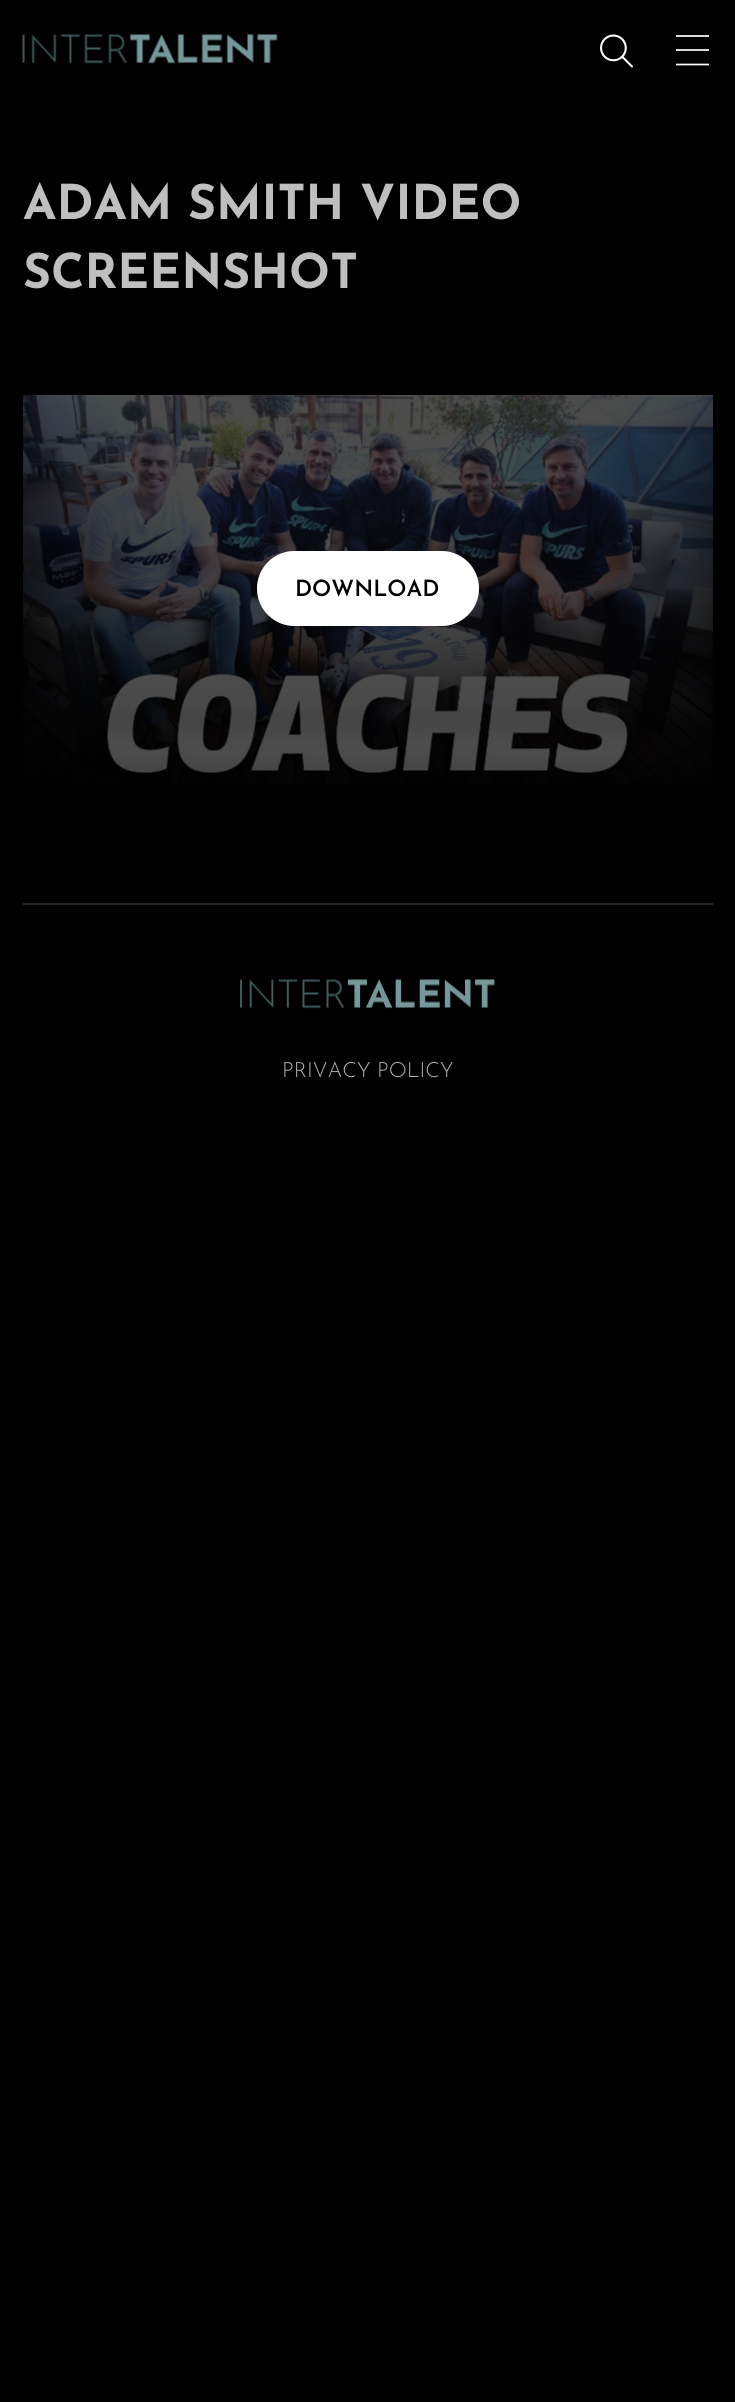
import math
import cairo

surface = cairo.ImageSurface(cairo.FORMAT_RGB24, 735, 2402)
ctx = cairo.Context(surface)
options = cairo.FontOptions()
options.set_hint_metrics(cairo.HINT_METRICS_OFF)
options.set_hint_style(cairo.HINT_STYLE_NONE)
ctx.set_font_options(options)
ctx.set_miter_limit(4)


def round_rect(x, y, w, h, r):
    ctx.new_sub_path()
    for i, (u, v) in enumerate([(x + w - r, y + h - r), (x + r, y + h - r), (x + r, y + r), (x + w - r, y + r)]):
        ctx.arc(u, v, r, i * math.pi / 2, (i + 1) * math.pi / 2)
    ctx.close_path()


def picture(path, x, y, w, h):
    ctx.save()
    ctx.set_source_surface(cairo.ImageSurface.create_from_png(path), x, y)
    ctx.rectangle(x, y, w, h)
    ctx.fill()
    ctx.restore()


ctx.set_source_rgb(0, 0, 0)
ctx.paint()
picture("img1.png", 22, 34, 256, 30)
picture("img2.png", 600, 34, 33, 34)
ctx.set_source_rgb(0.851, 0.851, 0.851)
ctx.rectangle(676, 35, 33, 2)
ctx.fill()
ctx.rectangle(676, 49, 33, 2)
ctx.fill()
ctx.new_path()
ctx.move_to(709, 64.5)
ctx.line_to(676, 64.5)
ctx.set_source_rgb(1, 1, 1)
ctx.set_line_width(1.7)
ctx.stroke()
ctx.select_font_face("Josefin Sans", cairo.FONT_SLANT_NORMAL, cairo.FONT_WEIGHT_BOLD)
ctx.set_font_size(48)
ctx.set_source_rgb(0.749, 0.749, 0.749)
ctx.move_to(23, 219)
ctx.show_text("ADAM SMITH VIDEO")
ctx.move_to(23, 288)
ctx.show_text("SCREENSHOT")
picture("img3.png", 23, 395, 690, 389)
ctx.set_source_rgb(1, 1, 1)
round_rect(257, 551, 222, 75, 37.5)
ctx.fill()
round_rect(258, 552, 220, 73, 36.5)
ctx.set_source_rgba(1, 1, 1, 0.25)
ctx.set_line_width(2)
ctx.stroke()
ctx.select_font_face("Josefin Sans SemiBold")
ctx.set_font_size(22.5)
ctx.set_source_rgb(0, 0, 0)
ctx.move_to(295, 596)
ctx.show_text("DOWNLOAD")
ctx.set_source_rgb(0.149, 0.149, 0.149)
ctx.rectangle(23, 903, 690, 2)
ctx.fill()
picture("img4.png", 240, 979, 255, 30)
ctx.select_font_face("Josefin Sans Light")
ctx.set_font_size(21)
ctx.set_source_rgb(0.702, 0.702, 0.702)
ctx.move_to(282, 1077)
ctx.show_text("PRIVACY POLICY")
surface.write_to_png("page.png")
